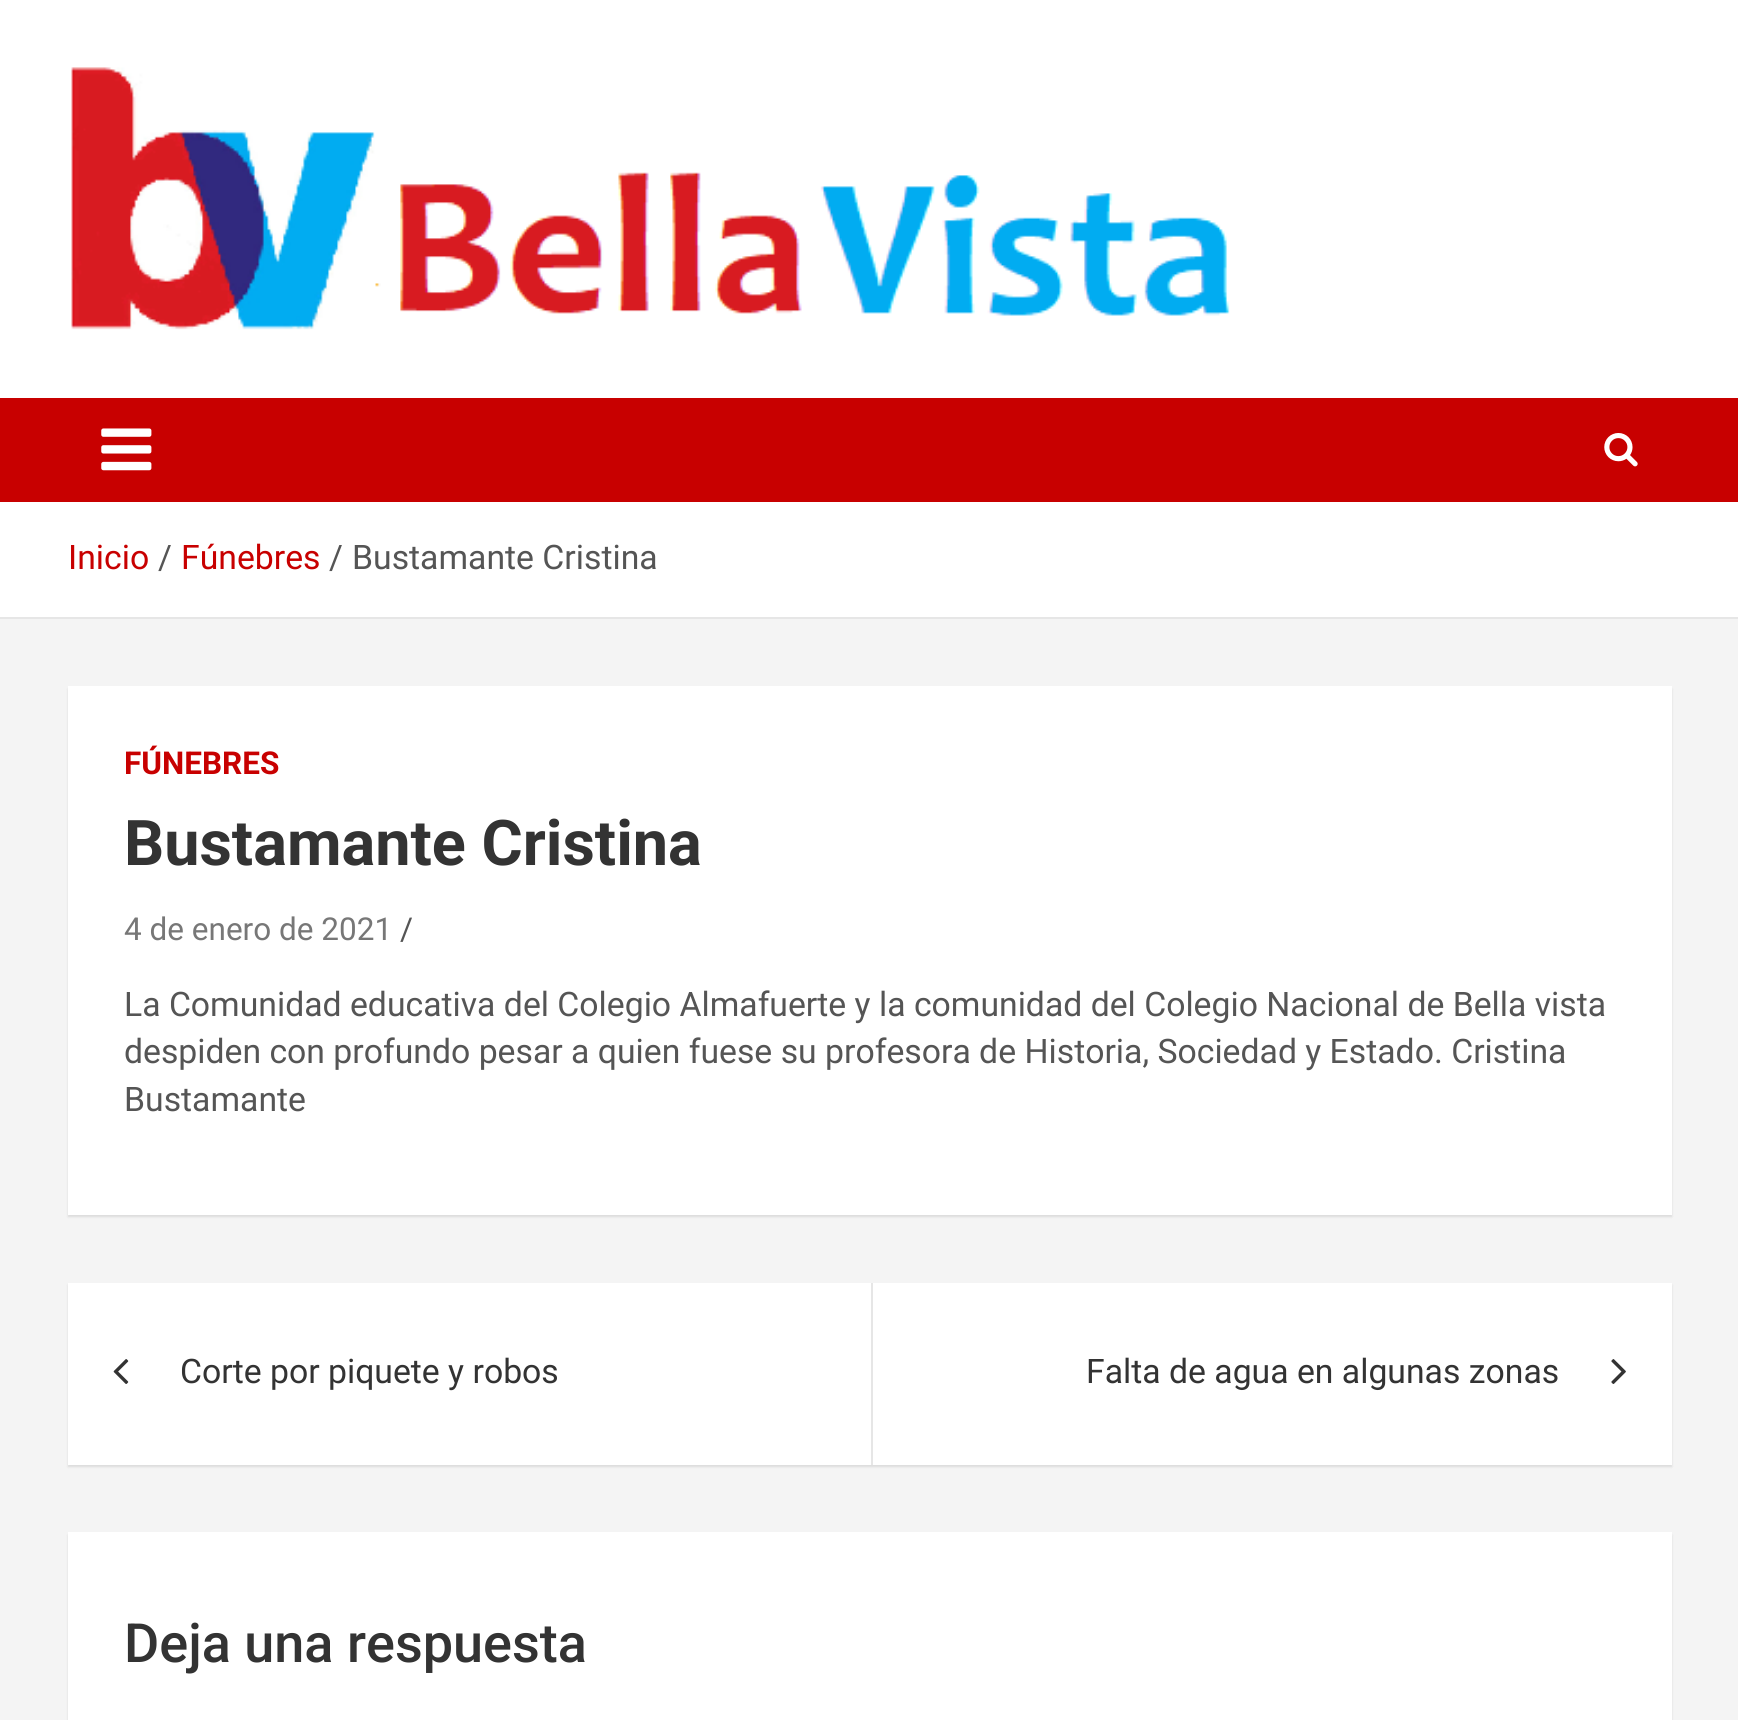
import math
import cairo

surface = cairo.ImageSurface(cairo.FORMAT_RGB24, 1738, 1720)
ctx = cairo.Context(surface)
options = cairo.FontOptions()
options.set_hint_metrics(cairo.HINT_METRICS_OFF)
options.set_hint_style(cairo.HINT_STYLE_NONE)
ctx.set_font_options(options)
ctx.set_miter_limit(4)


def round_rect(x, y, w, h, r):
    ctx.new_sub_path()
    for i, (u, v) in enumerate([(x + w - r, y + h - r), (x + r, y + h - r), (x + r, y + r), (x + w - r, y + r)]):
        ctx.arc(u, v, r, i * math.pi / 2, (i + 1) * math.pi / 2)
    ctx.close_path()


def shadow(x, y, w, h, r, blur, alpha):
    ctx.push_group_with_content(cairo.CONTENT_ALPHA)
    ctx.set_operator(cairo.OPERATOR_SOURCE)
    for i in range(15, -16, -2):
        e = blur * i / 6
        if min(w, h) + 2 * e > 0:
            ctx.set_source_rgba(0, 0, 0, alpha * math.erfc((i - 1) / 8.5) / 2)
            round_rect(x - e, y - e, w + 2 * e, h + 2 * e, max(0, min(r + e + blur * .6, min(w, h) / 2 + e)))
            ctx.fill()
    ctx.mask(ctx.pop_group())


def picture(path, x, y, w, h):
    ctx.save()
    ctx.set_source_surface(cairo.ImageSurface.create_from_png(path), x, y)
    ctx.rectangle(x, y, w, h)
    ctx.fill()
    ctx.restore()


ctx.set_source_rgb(0.957, 0.957, 0.957)
ctx.paint()
ctx.set_source_rgb(1, 1, 1)
ctx.rectangle(0, 0, 1738, 398)
ctx.fill()
picture("img1.png", 71, 67, 1159, 263)
ctx.set_source_rgb(0.784, 0, 0)
ctx.rectangle(0, 398, 1738, 104)
ctx.fill()
picture("img2.png", 101, 428, 51, 43)
picture("img3.png", 1604, 433, 34, 34)
ctx.set_source_rgb(1, 1, 1)
ctx.rectangle(0, 502, 1738, 115)
ctx.fill()
ctx.set_source_rgb(0.902, 0.902, 0.902)
ctx.rectangle(0, 617, 1738, 2)
ctx.fill()
ctx.select_font_face("Roboto")
ctx.set_font_size(33.75)
ctx.set_source_rgb(0.784, 0, 0)
ctx.move_to(68, 569)
ctx.show_text("Inicio")
ctx.set_source_rgb(0.333, 0.333, 0.333)
ctx.move_to(158, 569)
ctx.show_text("/")
ctx.set_source_rgb(0.784, 0, 0)
ctx.move_to(181, 569)
ctx.show_text("Fúnebres")
ctx.set_source_rgb(0.333, 0.333, 0.333)
ctx.move_to(329, 569)
ctx.show_text("/")
ctx.move_to(352, 569)
ctx.show_text("Bustamante Cristina")
ctx.set_source_rgb(0, 0, 0)
shadow(68, 689, 1604, 528, 0, 1, 0.1)
ctx.set_source_rgb(1, 1, 1)
ctx.rectangle(68, 686, 1604, 529)
ctx.fill()
ctx.select_font_face("Roboto", cairo.FONT_SLANT_NORMAL, cairo.FONT_WEIGHT_BOLD)
ctx.set_font_size(31.5)
ctx.set_source_rgb(0.784, 0, 0)
ctx.move_to(124, 774)
ctx.show_text("FÚNEBRES")
ctx.set_font_size(63)
ctx.set_source_rgb(0.2, 0.2, 0.2)
ctx.move_to(124, 865)
ctx.show_text("Bustamante Cristina")
ctx.select_font_face("Roboto")
ctx.set_font_size(31.5)
ctx.set_source_rgb(0.467, 0.467, 0.467)
ctx.move_to(124, 940)
ctx.show_text("4 de enero de 2021")
ctx.set_source_rgb(0.333, 0.333, 0.333)
ctx.move_to(400, 940)
ctx.show_text("/")
ctx.set_font_size(33.75)
ctx.move_to(124, 1016)
ctx.show_text("La Comunidad educativa del Colegio Almafuerte y la comunidad del Colegio Nacional de Bella vista")
ctx.move_to(124, 1063)
ctx.show_text("despiden con profundo pesar a quien fuese su profesora de Historia, Sociedad y Estado. Cristina")
ctx.move_to(124, 1111)
ctx.show_text("Bustamante")
ctx.set_source_rgb(0, 0, 0)
shadow(68, 1285, 1604, 182, 0, 1, 0.1)
ctx.set_source_rgb(1, 1, 1)
ctx.rectangle(68, 1283, 1604, 182)
ctx.fill()
picture("img4.png", 113, 1359, 16, 25)
ctx.set_source_rgb(0.2, 0.2, 0.2)
ctx.move_to(180, 1383)
ctx.show_text("Corte por piquete y robos")
ctx.set_source_rgb(0.902, 0.902, 0.902)
ctx.rectangle(871, 1283, 2, 182)
ctx.fill()
ctx.set_source_rgb(0.2, 0.2, 0.2)
ctx.move_to(1086, 1383)
ctx.show_text("Falta de agua en algunas zonas")
picture("img5.png", 1611, 1359, 15, 25)
ctx.set_source_rgb(0, 0, 0)
shadow(68, 1535, 1604, 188, 0, 1, 0.1)
ctx.set_source_rgb(1, 1, 1)
ctx.rectangle(68, 1532, 1604, 188)
ctx.fill()
ctx.select_font_face("Roboto Medium")
ctx.set_font_size(54)
ctx.set_source_rgb(0.2, 0.2, 0.2)
ctx.move_to(124, 1662)
ctx.show_text("Deja una respuesta")
surface.write_to_png("page.png")
